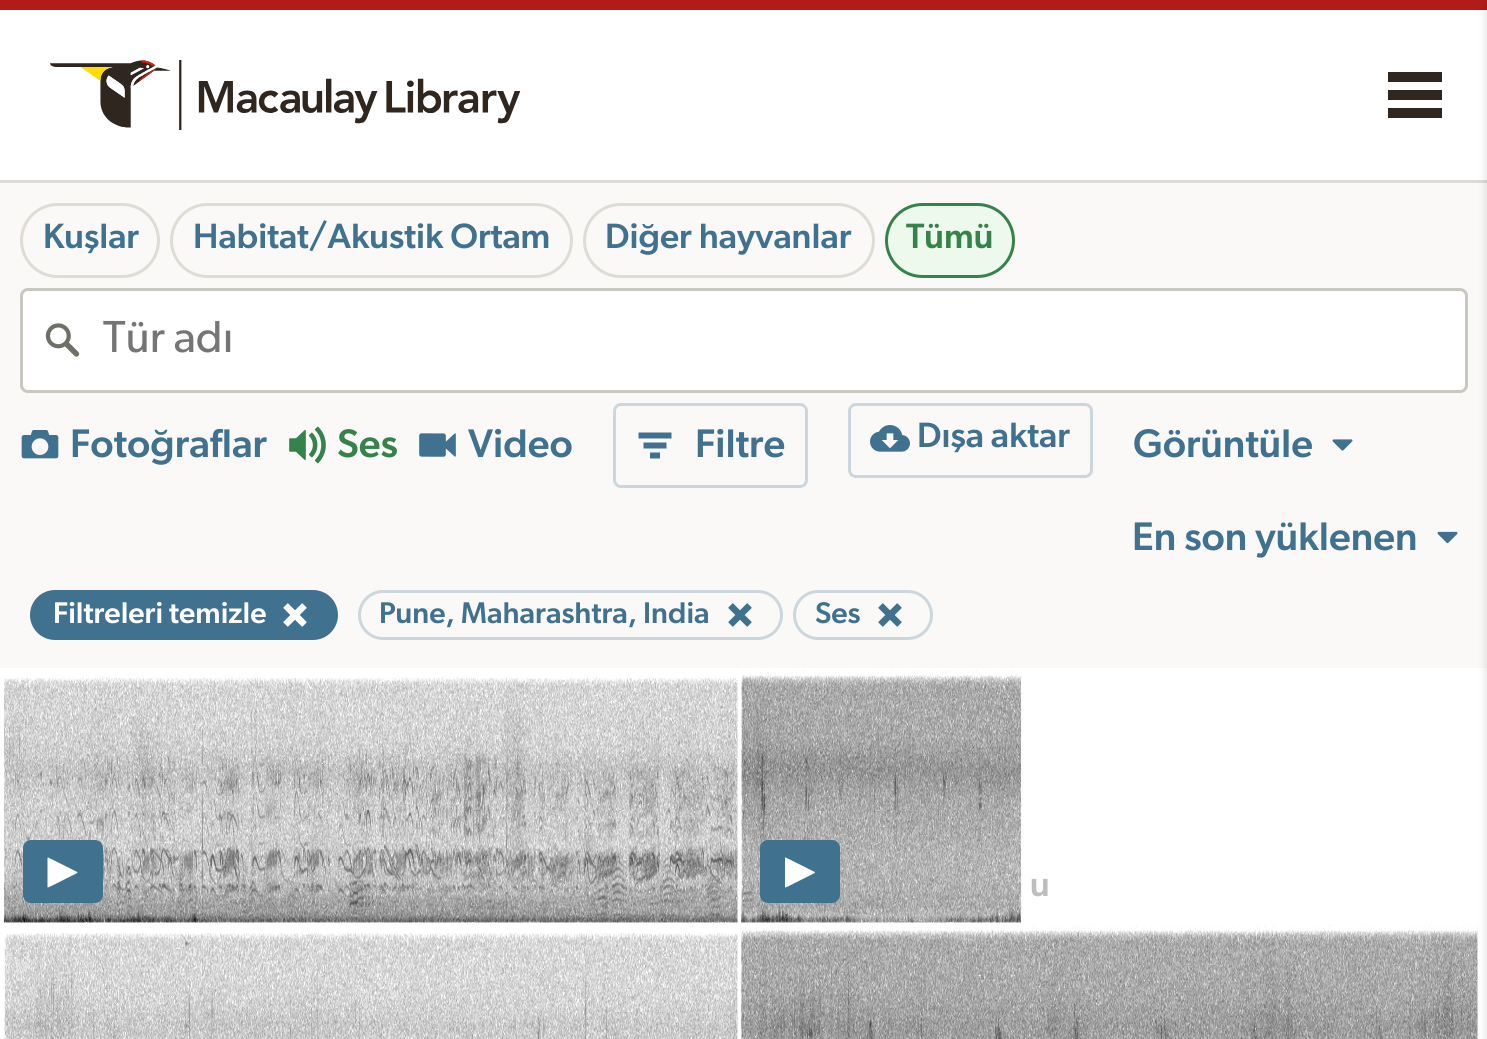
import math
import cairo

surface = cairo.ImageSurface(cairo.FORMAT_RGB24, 1487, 1039)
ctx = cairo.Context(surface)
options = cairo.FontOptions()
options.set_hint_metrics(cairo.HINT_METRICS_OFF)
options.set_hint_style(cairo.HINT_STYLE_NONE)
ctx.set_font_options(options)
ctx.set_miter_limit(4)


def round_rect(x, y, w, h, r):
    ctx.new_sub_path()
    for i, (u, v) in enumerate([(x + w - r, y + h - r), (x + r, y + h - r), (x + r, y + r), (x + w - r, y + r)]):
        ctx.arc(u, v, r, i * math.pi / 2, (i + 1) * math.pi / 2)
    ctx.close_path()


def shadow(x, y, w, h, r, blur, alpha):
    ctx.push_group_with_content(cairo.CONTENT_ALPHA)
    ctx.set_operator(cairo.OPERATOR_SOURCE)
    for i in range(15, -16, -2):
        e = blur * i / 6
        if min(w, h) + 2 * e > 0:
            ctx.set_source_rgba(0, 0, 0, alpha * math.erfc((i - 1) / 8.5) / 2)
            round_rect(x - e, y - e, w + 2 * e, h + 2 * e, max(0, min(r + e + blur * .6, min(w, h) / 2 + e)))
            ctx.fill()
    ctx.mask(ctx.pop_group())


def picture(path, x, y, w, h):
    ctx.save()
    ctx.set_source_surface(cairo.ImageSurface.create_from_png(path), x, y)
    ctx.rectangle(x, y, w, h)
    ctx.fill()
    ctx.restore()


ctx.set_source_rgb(1, 1, 1)
ctx.paint()
ctx.set_source_rgb(0.702, 0.106, 0.106)
ctx.rectangle(0, 0, 1487, 10)
ctx.fill()
ctx.set_source_rgb(0.859, 0.859, 0.851)
ctx.rectangle(0, 180, 1487, 3)
ctx.fill()
picture("img1.png", 50, 60, 470, 70)
ctx.set_source_rgb(0.18, 0.149, 0.122)
ctx.set_fill_rule(cairo.FILL_RULE_EVEN_ODD)
ctx.new_path()
ctx.move_to(1388, 72)
ctx.line_to(1442, 72)
ctx.line_to(1442, 82)
ctx.line_to(1388, 82)
ctx.close_path()
ctx.move_to(1388, 90)
ctx.line_to(1442, 90)
ctx.line_to(1442, 100)
ctx.line_to(1388, 100)
ctx.close_path()
ctx.move_to(1388, 108)
ctx.line_to(1442, 108)
ctx.line_to(1442, 118)
ctx.line_to(1388, 118)
ctx.close_path()
ctx.fill()
ctx.set_source_rgb(0.98, 0.976, 0.969)
ctx.rectangle(0, 183, 1487, 485)
ctx.fill()
picture("img16.png", 740, 925, 738, 114)
ctx.set_source_rgb(0, 0, 0)
shadow(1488, 5, 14, 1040, 0, 5, 0.2)
round_rect(21.5, 204.5, 137, 72, 36)
ctx.set_source_rgb(0.867, 0.863, 0.835)
ctx.set_line_width(3)
ctx.stroke()
ctx.select_font_face("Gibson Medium")
ctx.set_font_size(35.25)
ctx.set_source_rgb(0.251, 0.443, 0.561)
ctx.move_to(43, 248)
ctx.show_text("Kuşlar")
round_rect(171.5, 204.5, 400, 72, 36)
ctx.set_source_rgb(0.867, 0.863, 0.835)
ctx.stroke()
ctx.set_source_rgb(0.251, 0.443, 0.561)
ctx.move_to(193, 248)
ctx.show_text("Habitat/Akustik Ortam")
round_rect(584.5, 204.5, 289, 72, 36)
ctx.set_source_rgb(0.867, 0.863, 0.835)
ctx.stroke()
ctx.set_source_rgb(0.251, 0.443, 0.561)
ctx.move_to(605, 248)
ctx.show_text("Diğer hayvanlar")
ctx.set_source_rgb(0.925, 0.976, 0.922)
round_rect(886.5, 204.5, 127, 72, 36)
ctx.fill_preserve()
ctx.set_source_rgb(0.212, 0.51, 0.294)
ctx.stroke()
ctx.move_to(906, 248)
ctx.show_text("Tümü")
ctx.set_source_rgb(1, 1, 1)
round_rect(21.5, 289.5, 1445, 102, 6.5)
ctx.fill_preserve()
ctx.set_source_rgb(0.784, 0.78, 0.753)
ctx.stroke()
picture("img2.png", 45, 323, 35, 34)
ctx.save()
ctx.set_fill_rule(cairo.FILL_RULE_WINDING)
ctx.rectangle(103, 318, 1342, 45)
ctx.clip()
ctx.select_font_face("Gibson")
ctx.set_font_size(45)
ctx.set_source_rgb(0.459, 0.459, 0.459)
ctx.move_to(103, 352)
ctx.show_text("Tür adı")
ctx.restore()
picture("img3.png", 21, 430, 38, 29)
ctx.set_font_size(40)
ctx.set_source_rgb(0.251, 0.443, 0.561)
ctx.move_to(70, 457)
ctx.show_text("Fotoğraflar")
picture("img4.png", 289, 426, 37, 38)
ctx.set_source_rgb(0.212, 0.51, 0.294)
ctx.move_to(337, 457)
ctx.show_text("Ses")
picture("img5.png", 419, 433, 37, 24)
ctx.set_source_rgb(0.251, 0.443, 0.561)
ctx.move_to(468, 457)
ctx.show_text("Video")
round_rect(614.5, 404.5, 192, 82, 6.5)
ctx.set_source_rgb(0.8, 0.843, 0.867)
ctx.stroke()
ctx.set_source_rgb(0.251, 0.443, 0.561)
ctx.new_path()
ctx.move_to(650, 458.5)
ctx.line_to(660, 458.5)
ctx.line_to(660, 452.5)
ctx.line_to(650, 452.5)
ctx.close_path()
ctx.move_to(638.5, 432.5)
ctx.line_to(638.5, 438.5)
ctx.line_to(671.5, 438.5)
ctx.line_to(671.5, 432.5)
ctx.close_path()
ctx.move_to(643.5, 448.5)
ctx.line_to(666.5, 448.5)
ctx.line_to(666.5, 442.5)
ctx.line_to(643.5, 442.5)
ctx.close_path()
ctx.fill()
ctx.move_to(695, 457)
ctx.show_text("Filtre")
round_rect(849.5, 404.5, 242, 72, 6.5)
ctx.set_source_rgb(0.8, 0.843, 0.867)
ctx.stroke()
picture("img6.png", 870, 425, 40, 27)
ctx.set_font_size(35.25)
ctx.set_source_rgb(0.251, 0.443, 0.561)
ctx.move_to(917, 447)
ctx.show_text("Dışa aktar")
ctx.set_font_size(40)
ctx.move_to(1133, 457)
ctx.show_text("Görüntüle")
picture("img7.png", 1332, 439, 21, 12)
ctx.move_to(1132, 550)
ctx.show_text("En son yüklenen")
picture("img8.png", 1437, 531, 21, 13)
round_rect(30, 590, 308, 50, 25)
ctx.fill()
ctx.set_font_size(30)
ctx.set_source_rgb(1, 1, 1)
ctx.move_to(53, 623)
ctx.show_text("Filtreleri temizle")
picture("img9.png", 283, 603, 24, 24)
round_rect(359.5, 591.5, 422, 47, 23.5)
ctx.set_source_rgb(0.8, 0.843, 0.867)
ctx.stroke()
ctx.set_source_rgb(0.251, 0.443, 0.561)
ctx.move_to(379, 623)
ctx.show_text("Pune, Maharashtra, India")
picture("img10.png", 728, 603, 24, 24)
round_rect(794.5, 591.5, 137, 47, 23.5)
ctx.set_source_rgb(0.8, 0.843, 0.867)
ctx.stroke()
ctx.set_source_rgb(0.251, 0.443, 0.561)
ctx.move_to(815, 623)
ctx.show_text("Ses")
picture("img10.png", 878, 603, 24, 24)
picture("img11.png", 3, 676, 735, 247)
round_rect(23, 840, 80, 63, 8)
ctx.fill()
picture("img12.png", 47, 857, 31, 31)
picture("img13.png", 740, 670, 283, 253)
round_rect(760, 840, 80, 63, 8)
ctx.fill()
picture("img14.png", 785, 857, 30, 31)
ctx.set_font_size(35.25)
ctx.set_source_rgb(0.745, 0.745, 0.745)
ctx.move_to(1030, 896)
ctx.show_text("u")
picture("img15.png", 3, 933, 735, 106)
surface.write_to_png("page.png")
